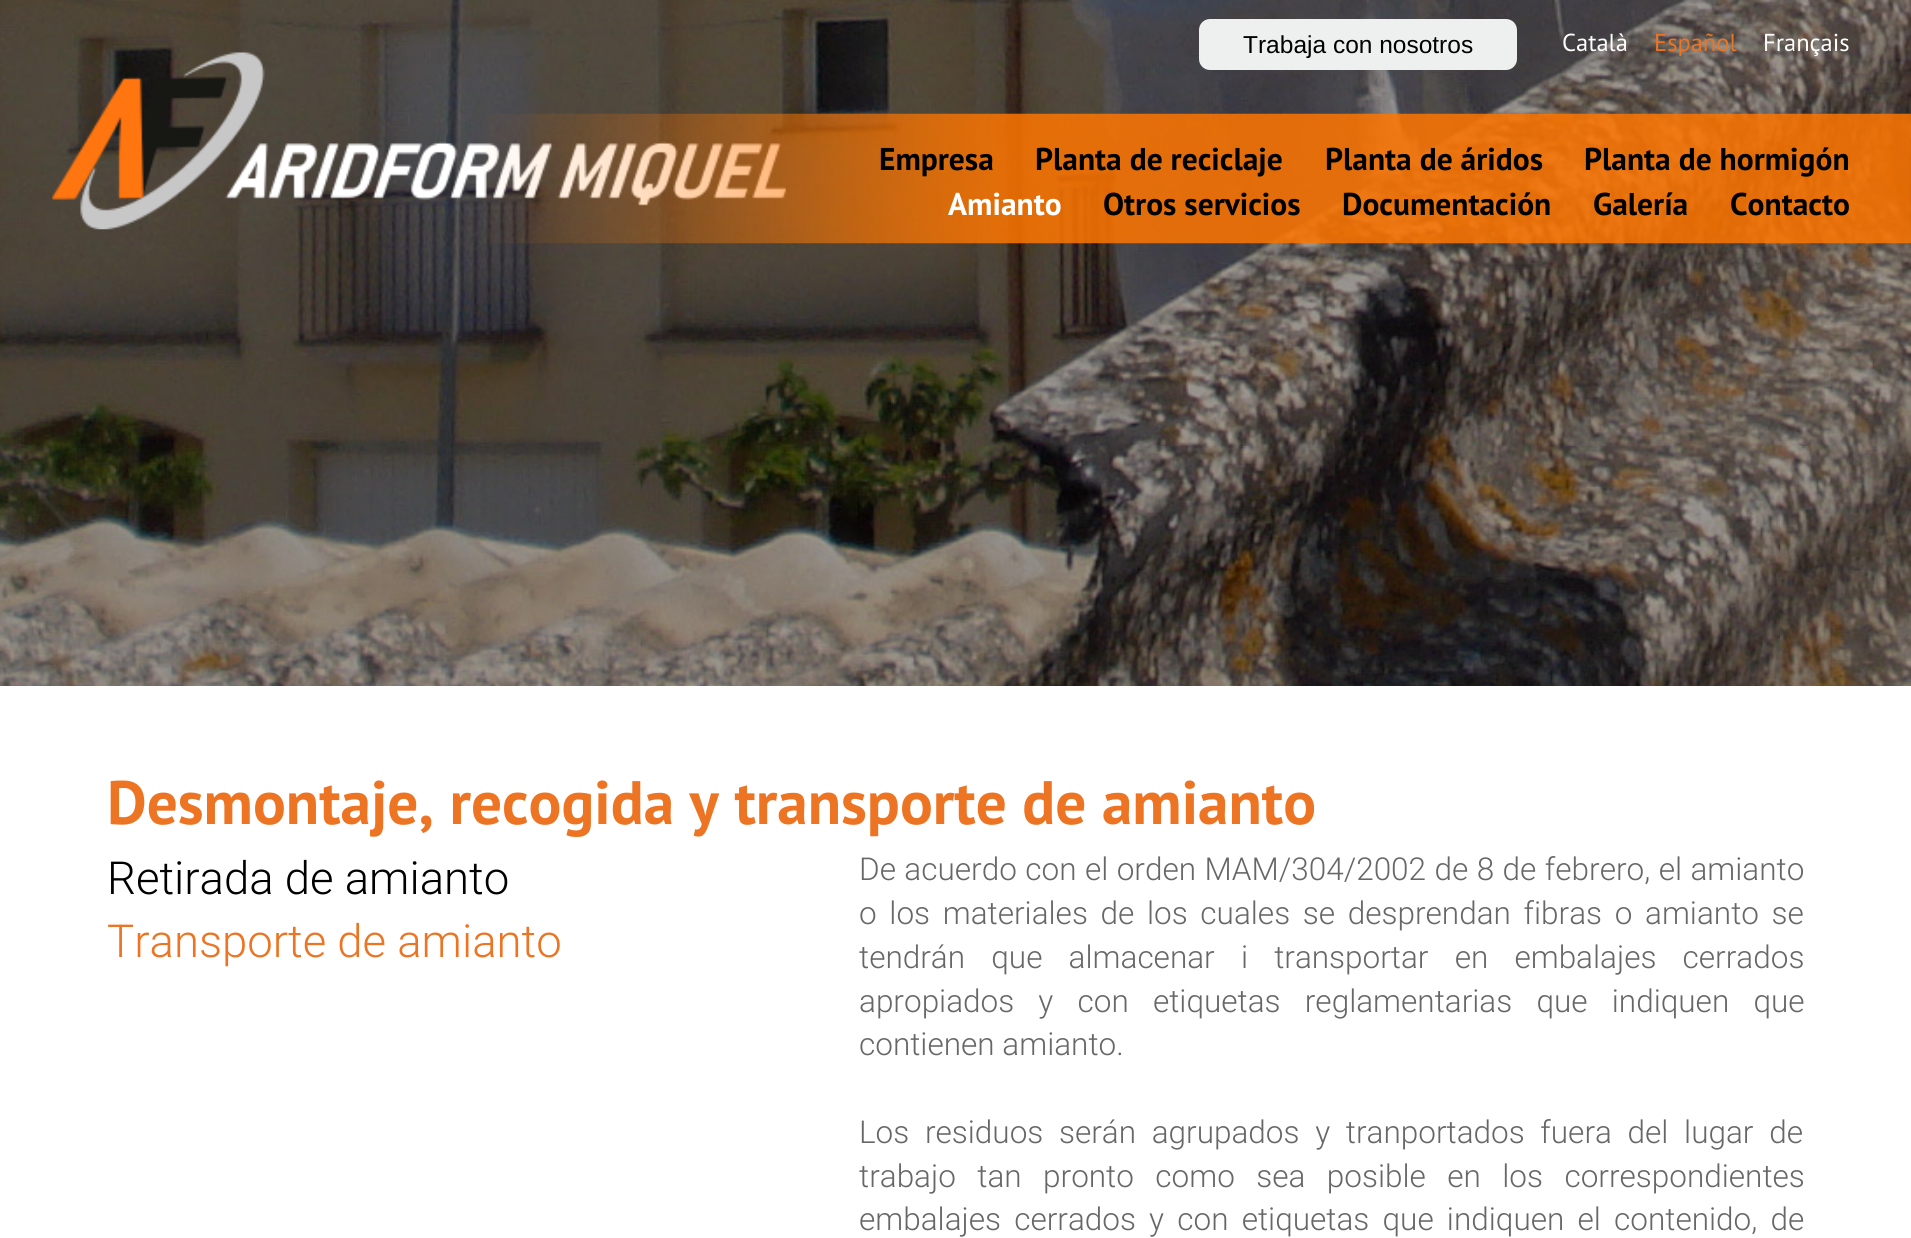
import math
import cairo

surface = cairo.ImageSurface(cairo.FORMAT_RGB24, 1911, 1238)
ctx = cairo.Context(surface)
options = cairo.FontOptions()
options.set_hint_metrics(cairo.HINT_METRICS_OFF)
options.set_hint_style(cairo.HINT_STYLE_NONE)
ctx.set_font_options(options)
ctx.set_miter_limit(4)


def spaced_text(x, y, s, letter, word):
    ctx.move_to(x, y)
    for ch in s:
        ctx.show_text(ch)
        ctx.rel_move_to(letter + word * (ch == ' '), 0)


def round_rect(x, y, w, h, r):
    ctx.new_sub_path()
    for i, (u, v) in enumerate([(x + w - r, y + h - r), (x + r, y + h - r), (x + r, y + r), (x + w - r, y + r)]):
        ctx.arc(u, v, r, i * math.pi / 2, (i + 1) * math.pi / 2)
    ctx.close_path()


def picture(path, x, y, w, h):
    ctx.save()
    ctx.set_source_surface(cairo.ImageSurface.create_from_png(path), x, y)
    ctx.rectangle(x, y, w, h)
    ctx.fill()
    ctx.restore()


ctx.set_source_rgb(1, 1, 1)
ctx.paint()
picture("img1.png", 0, 0, 1911, 686)
ctx.set_source_rgb(0.933, 0.937, 0.937)
round_rect(1199, 19, 318, 51, 11)
ctx.fill()
ctx.select_font_face("Liberation Sans")
ctx.set_font_size(24.5)
ctx.set_source_rgb(0, 0, 0)
ctx.move_to(1243, 53)
ctx.show_text("Trabaja con nosotros")
ctx.select_font_face("PT Sans")
ctx.set_source_rgb(1, 1, 1)
ctx.move_to(1562, 51)
ctx.show_text("Català")
ctx.set_source_rgb(0.925, 0.455, 0.133)
ctx.move_to(1654, 51)
ctx.show_text("Español")
ctx.set_source_rgb(1, 1, 1)
ctx.move_to(1763, 51)
ctx.show_text("Français")
picture("img2.png", 52, 52, 734, 178)
picture("img3.png", 484, 113, 1427, 131)
ctx.select_font_face("PT Sans", cairo.FONT_SLANT_NORMAL, cairo.FONT_WEIGHT_BOLD)
ctx.set_font_size(31.5)
ctx.set_source_rgb(0, 0, 0)
ctx.move_to(879, 170)
ctx.show_text("Empresa")
ctx.move_to(1035, 170)
ctx.show_text("Planta de reciclaje")
ctx.move_to(1325, 170)
ctx.show_text("Planta de áridos")
ctx.move_to(1584, 170)
ctx.show_text("Planta de hormigón")
ctx.set_source_rgb(1, 1, 1)
ctx.move_to(948, 215)
ctx.show_text("Amianto")
ctx.set_source_rgb(0, 0, 0)
ctx.move_to(1103, 215)
ctx.show_text("Otros servicios")
ctx.move_to(1342, 215)
ctx.show_text("Documentación")
ctx.move_to(1593, 215)
ctx.show_text("Galería")
ctx.move_to(1730, 215)
ctx.show_text("Contacto")
ctx.set_font_size(61.25)
ctx.set_source_rgb(0.925, 0.455, 0.133)
ctx.move_to(107, 824)
ctx.show_text("Desmontaje, recogida y transporte de amianto")
ctx.select_font_face("Roboto Light")
ctx.set_font_size(45.5)
ctx.set_source_rgb(0, 0, 0)
ctx.move_to(107, 894)
ctx.show_text("Retirada de amianto")
ctx.set_source_rgb(0.925, 0.455, 0.133)
ctx.move_to(107, 957)
ctx.show_text("Transporte de amianto")
ctx.set_font_size(31.5)
ctx.set_source_rgb(0.404, 0.404, 0.404)
spaced_text(859, 880, "De acuerdo con el orden MAM/304/2002 de 8 de febrero, el amianto", 0, 0.75)
spaced_text(859, 924, "o los materiales de los cuales se desprendan fibras o amianto se", 0, 5)
spaced_text(859, 968, "tendrán que almacenar i transportar en embalajes cerrados", 0, 18.5)
spaced_text(859, 1012, "apropiados y con etiquetas reglamentarias que indiquen que", 0, 16.5)
ctx.move_to(859, 1055)
ctx.show_text("contienen amianto.")
spaced_text(859, 1143, "Los residuos serán agrupados y tranportados fuera del lugar de", 0, 8)
spaced_text(859, 1187, "trabajo tan pronto como sea posible en los correspondientes", 0, 13.75)
spaced_text(859, 1230, "embalajes cerrados y con etiquetas que indiquen el contenido, de", 0, 5.5)
surface.write_to_png("page.png")
